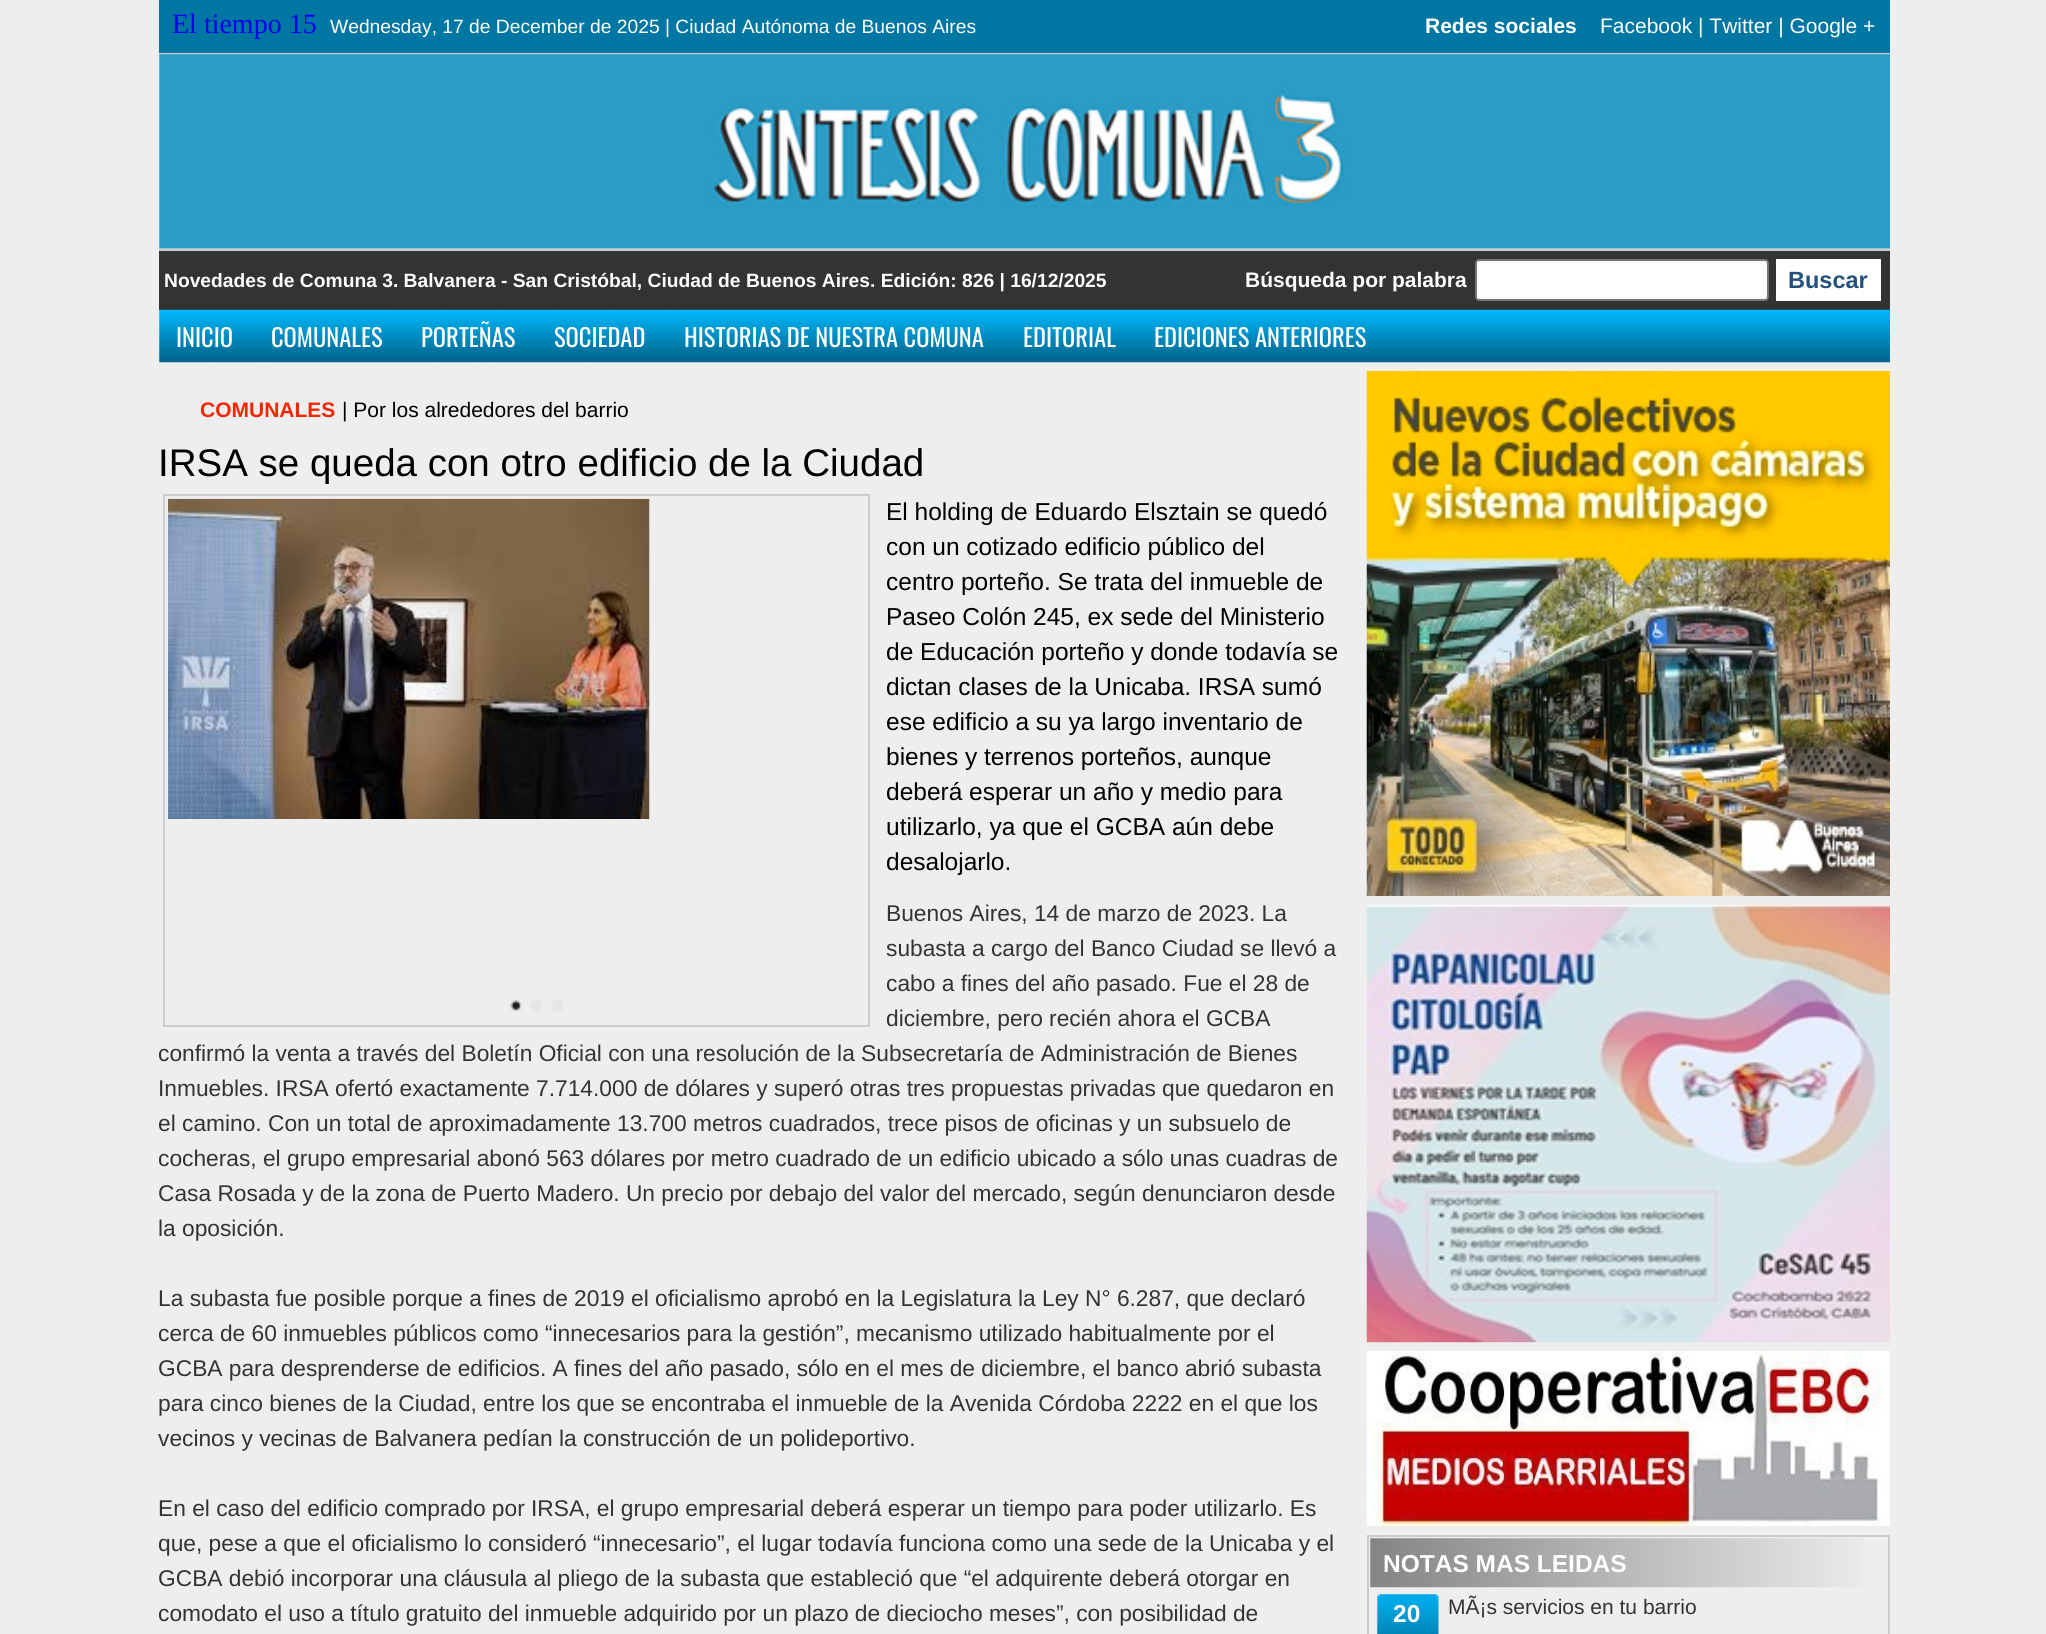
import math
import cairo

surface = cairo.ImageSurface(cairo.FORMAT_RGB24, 2046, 1634)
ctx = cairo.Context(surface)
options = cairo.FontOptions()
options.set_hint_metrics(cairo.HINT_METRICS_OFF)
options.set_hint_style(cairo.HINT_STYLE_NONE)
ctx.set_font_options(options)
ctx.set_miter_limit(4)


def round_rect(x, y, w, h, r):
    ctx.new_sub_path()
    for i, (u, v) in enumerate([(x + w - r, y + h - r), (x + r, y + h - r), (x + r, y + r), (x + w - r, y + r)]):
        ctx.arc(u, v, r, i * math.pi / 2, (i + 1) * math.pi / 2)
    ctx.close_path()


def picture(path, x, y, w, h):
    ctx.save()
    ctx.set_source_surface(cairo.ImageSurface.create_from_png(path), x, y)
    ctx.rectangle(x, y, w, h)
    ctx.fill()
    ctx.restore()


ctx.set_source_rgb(0.933, 0.933, 0.933)
ctx.paint()
ctx.set_source_rgb(0, 0.467, 0.635)
ctx.rectangle(159, 0, 1731, 53)
ctx.fill()
ctx.set_source_rgb(0.8, 0.8, 0.8)
ctx.rectangle(159, 53, 1731, 2)
ctx.fill()
ctx.select_font_face("Liberation Serif")
ctx.set_font_size(28)
ctx.set_source_rgb(0, 0, 0.933)
ctx.move_to(172, 33)
ctx.show_text("El tiempo 15")
ctx.select_font_face("Liberation Sans")
ctx.set_font_size(19.25)
ctx.set_source_rgb(1, 1, 1)
ctx.move_to(330, 33)
ctx.show_text("Wednesday, 17 de December de 2025 | Ciudad Autónoma de Buenos Aires")
ctx.select_font_face("Liberation Sans", cairo.FONT_SLANT_NORMAL, cairo.FONT_WEIGHT_BOLD)
ctx.set_font_size(21)
ctx.move_to(1425, 33)
ctx.show_text("Redes sociales")
ctx.select_font_face("Liberation Sans")
ctx.move_to(1600, 33)
ctx.show_text("Facebook | Twitter | Google +")
picture("img1.png", 159, 54, 1731, 195)
ctx.set_source_rgb(0.2, 0.2, 0.2)
ctx.rectangle(159, 251, 1731, 59)
ctx.fill()
ctx.set_source_rgb(0.8, 0.8, 0.8)
ctx.rectangle(159, 249, 1731, 2)
ctx.fill()
ctx.select_font_face("Liberation Sans", cairo.FONT_SLANT_NORMAL, cairo.FONT_WEIGHT_BOLD)
ctx.set_font_size(19.25)
ctx.set_source_rgb(1, 1, 1)
ctx.move_to(164, 287)
ctx.show_text("Novedades de Comuna 3. Balvanera - San Cristóbal, Ciudad de Buenos Aires. Edición: 826 | 16/12/2025")
ctx.set_font_size(21)
ctx.move_to(1245, 287)
ctx.show_text("Búsqueda por palabra")
round_rect(1476, 260, 292, 40, 3)
ctx.fill_preserve()
ctx.set_source_rgb(0.463, 0.463, 0.463)
ctx.stroke()
ctx.set_source_rgb(1, 1, 1)
ctx.rectangle(1776, 259, 105, 42)
ctx.fill()
ctx.set_font_size(23.5)
ctx.set_source_rgb(0.145, 0.314, 0.482)
ctx.move_to(1788, 288)
ctx.show_text("Buscar")
picture("img2.png", 159, 309, 1731, 54)
ctx.select_font_face("Oswald")
ctx.set_font_size(24.5)
ctx.set_source_rgb(1, 1, 1)
ctx.move_to(176, 347)
ctx.show_text("INICIO")
ctx.move_to(271, 347)
ctx.show_text("COMUNALES")
ctx.move_to(421, 347)
ctx.show_text("PORTEÑAS")
ctx.move_to(554, 347)
ctx.show_text("SOCIEDAD")
ctx.move_to(684, 347)
ctx.show_text("HISTORIAS DE NUESTRA COMUNA")
ctx.move_to(1023, 347)
ctx.show_text("EDITORIAL")
ctx.move_to(1154, 347)
ctx.show_text("EDICIONES ANTERIORES")
ctx.select_font_face("Liberation Sans", cairo.FONT_SLANT_NORMAL, cairo.FONT_WEIGHT_BOLD)
ctx.set_font_size(21)
ctx.set_source_rgb(0.953, 0.149, 0.027)
ctx.move_to(200, 417)
ctx.show_text("COMUNALES")
ctx.select_font_face("Liberation Sans")
ctx.set_source_rgb(0, 0, 0)
ctx.move_to(342, 417)
ctx.show_text("| Por los alrededores del barrio")
ctx.set_font_size(38.5)
ctx.move_to(158, 476)
ctx.show_text("IRSA se queda con otro edificio de la Ciudad")
ctx.rectangle(164, 495, 705, 531)
ctx.set_source_rgb(0.8, 0.8, 0.8)
ctx.stroke()
picture("img3.png", 168, 498, 482, 321)
picture("img4.png", 509, 999, 14, 13)
picture("img5.png", 530, 999, 13, 13)
picture("img6.png", 551, 999, 13, 13)
ctx.set_font_size(24.5)
ctx.set_source_rgb(0, 0, 0)
ctx.move_to(886, 520)
ctx.show_text("El holding de Eduardo Elsztain se quedó")
ctx.move_to(886, 555)
ctx.show_text("con un cotizado edificio público del")
ctx.move_to(886, 590)
ctx.show_text("centro porteño. Se trata del inmueble de")
ctx.move_to(886, 625)
ctx.show_text("Paseo Colón 245, ex sede del Ministerio")
ctx.move_to(886, 660)
ctx.show_text("de Educación porteño y donde todavía se")
ctx.move_to(886, 695)
ctx.show_text("dictan clases de la Unicaba. IRSA sumó")
ctx.move_to(886, 730)
ctx.show_text("ese edificio a su ya largo inventario de")
ctx.move_to(886, 765)
ctx.show_text("bienes y terrenos porteños, aunque")
ctx.move_to(886, 800)
ctx.show_text("deberá esperar un año y medio para")
ctx.move_to(886, 835)
ctx.show_text("utilizarlo, ya que el GCBA aún debe")
ctx.move_to(886, 870)
ctx.show_text("desalojarlo.")
ctx.set_font_size(22.75)
ctx.set_source_rgb(0.2, 0.2, 0.2)
ctx.move_to(886, 921)
ctx.show_text("Buenos Aires, 14 de marzo de 2023. La")
ctx.move_to(886, 956)
ctx.show_text("subasta a cargo del Banco Ciudad se llevó a")
ctx.move_to(886, 991)
ctx.show_text("cabo a fines del año pasado. Fue el 28 de")
ctx.move_to(886, 1026)
ctx.show_text("diciembre, pero recién ahora el GCBA")
ctx.move_to(158, 1061)
ctx.show_text("confirmó la venta a través del Boletín Oficial con una resolución de la Subsecretaría de Administración de Bienes")
ctx.move_to(158, 1096)
ctx.show_text("Inmuebles. IRSA ofertó exactamente 7.714.000 de dólares y superó otras tres propuestas privadas que quedaron en")
ctx.move_to(158, 1131)
ctx.show_text("el camino. Con un total de aproximadamente 13.700 metros cuadrados, trece pisos de oficinas y un subsuelo de")
ctx.move_to(158, 1166)
ctx.show_text("cocheras, el grupo empresarial abonó 563 dólares por metro cuadrado de un edificio ubicado a sólo unas cuadras de")
ctx.move_to(158, 1201)
ctx.show_text("Casa Rosada y de la zona de Puerto Madero. Un precio por debajo del valor del mercado, según denunciaron desde")
ctx.move_to(158, 1236)
ctx.show_text("la oposición.")
ctx.move_to(158, 1306)
ctx.show_text("La subasta fue posible porque a fines de 2019 el oficialismo aprobó en la Legislatura la Ley N° 6.287, que declaró")
ctx.move_to(158, 1341)
ctx.show_text("cerca de 60 inmuebles públicos como “innecesarios para la gestión”, mecanismo utilizado habitualmente por el")
ctx.move_to(158, 1376)
ctx.show_text("GCBA para desprenderse de edificios. A fines del año pasado, sólo en el mes de diciembre, el banco abrió subasta")
ctx.move_to(158, 1411)
ctx.show_text("para cinco bienes de la Ciudad, entre los que se encontraba el inmueble de la Avenida Córdoba 2222 en el que los")
ctx.move_to(158, 1446)
ctx.show_text("vecinos y vecinas de Balvanera pedían la construcción de un polideportivo.")
ctx.move_to(158, 1516)
ctx.show_text("En el caso del edificio comprado por IRSA, el grupo empresarial deberá esperar un tiempo para poder utilizarlo. Es")
ctx.move_to(158, 1551)
ctx.show_text("que, pese a que el oficialismo lo consideró “innecesario”, el lugar todavía funciona como una sede de la Unicaba y el")
ctx.move_to(158, 1586)
ctx.show_text("GCBA debió incorporar una cláusula al pliego de la subasta que estableció que “el adquirente deberá otorgar en")
ctx.move_to(158, 1621)
ctx.show_text("comodato el uso a título gratuito del inmueble adquirido por un plazo de dieciocho meses”, con posibilidad de")
picture("img7.png", 1366, 371, 524, 525)
picture("img8.png", 1366, 904, 524, 439)
picture("img9.png", 1366, 1351, 524, 175)
ctx.rectangle(1368, 1536, 521, 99)
ctx.set_source_rgb(0.8, 0.8, 0.8)
ctx.stroke()
picture("img10.png", 1370, 1538, 493, 50)
ctx.select_font_face("Liberation Sans", cairo.FONT_SLANT_NORMAL, cairo.FONT_WEIGHT_BOLD)
ctx.set_font_size(24.5)
ctx.set_source_rgb(1, 1, 1)
ctx.move_to(1383, 1572)
ctx.show_text("NOTAS MAS LEIDAS")
picture("img11.png", 1377, 1594, 62, 40)
ctx.move_to(1393, 1622)
ctx.show_text("20")
ctx.select_font_face("Liberation Sans")
ctx.set_font_size(21)
ctx.set_source_rgb(0.2, 0.2, 0.2)
ctx.move_to(1448, 1614)
ctx.show_text("MÃ¡s servicios en tu barrio")
surface.write_to_png("page.png")
